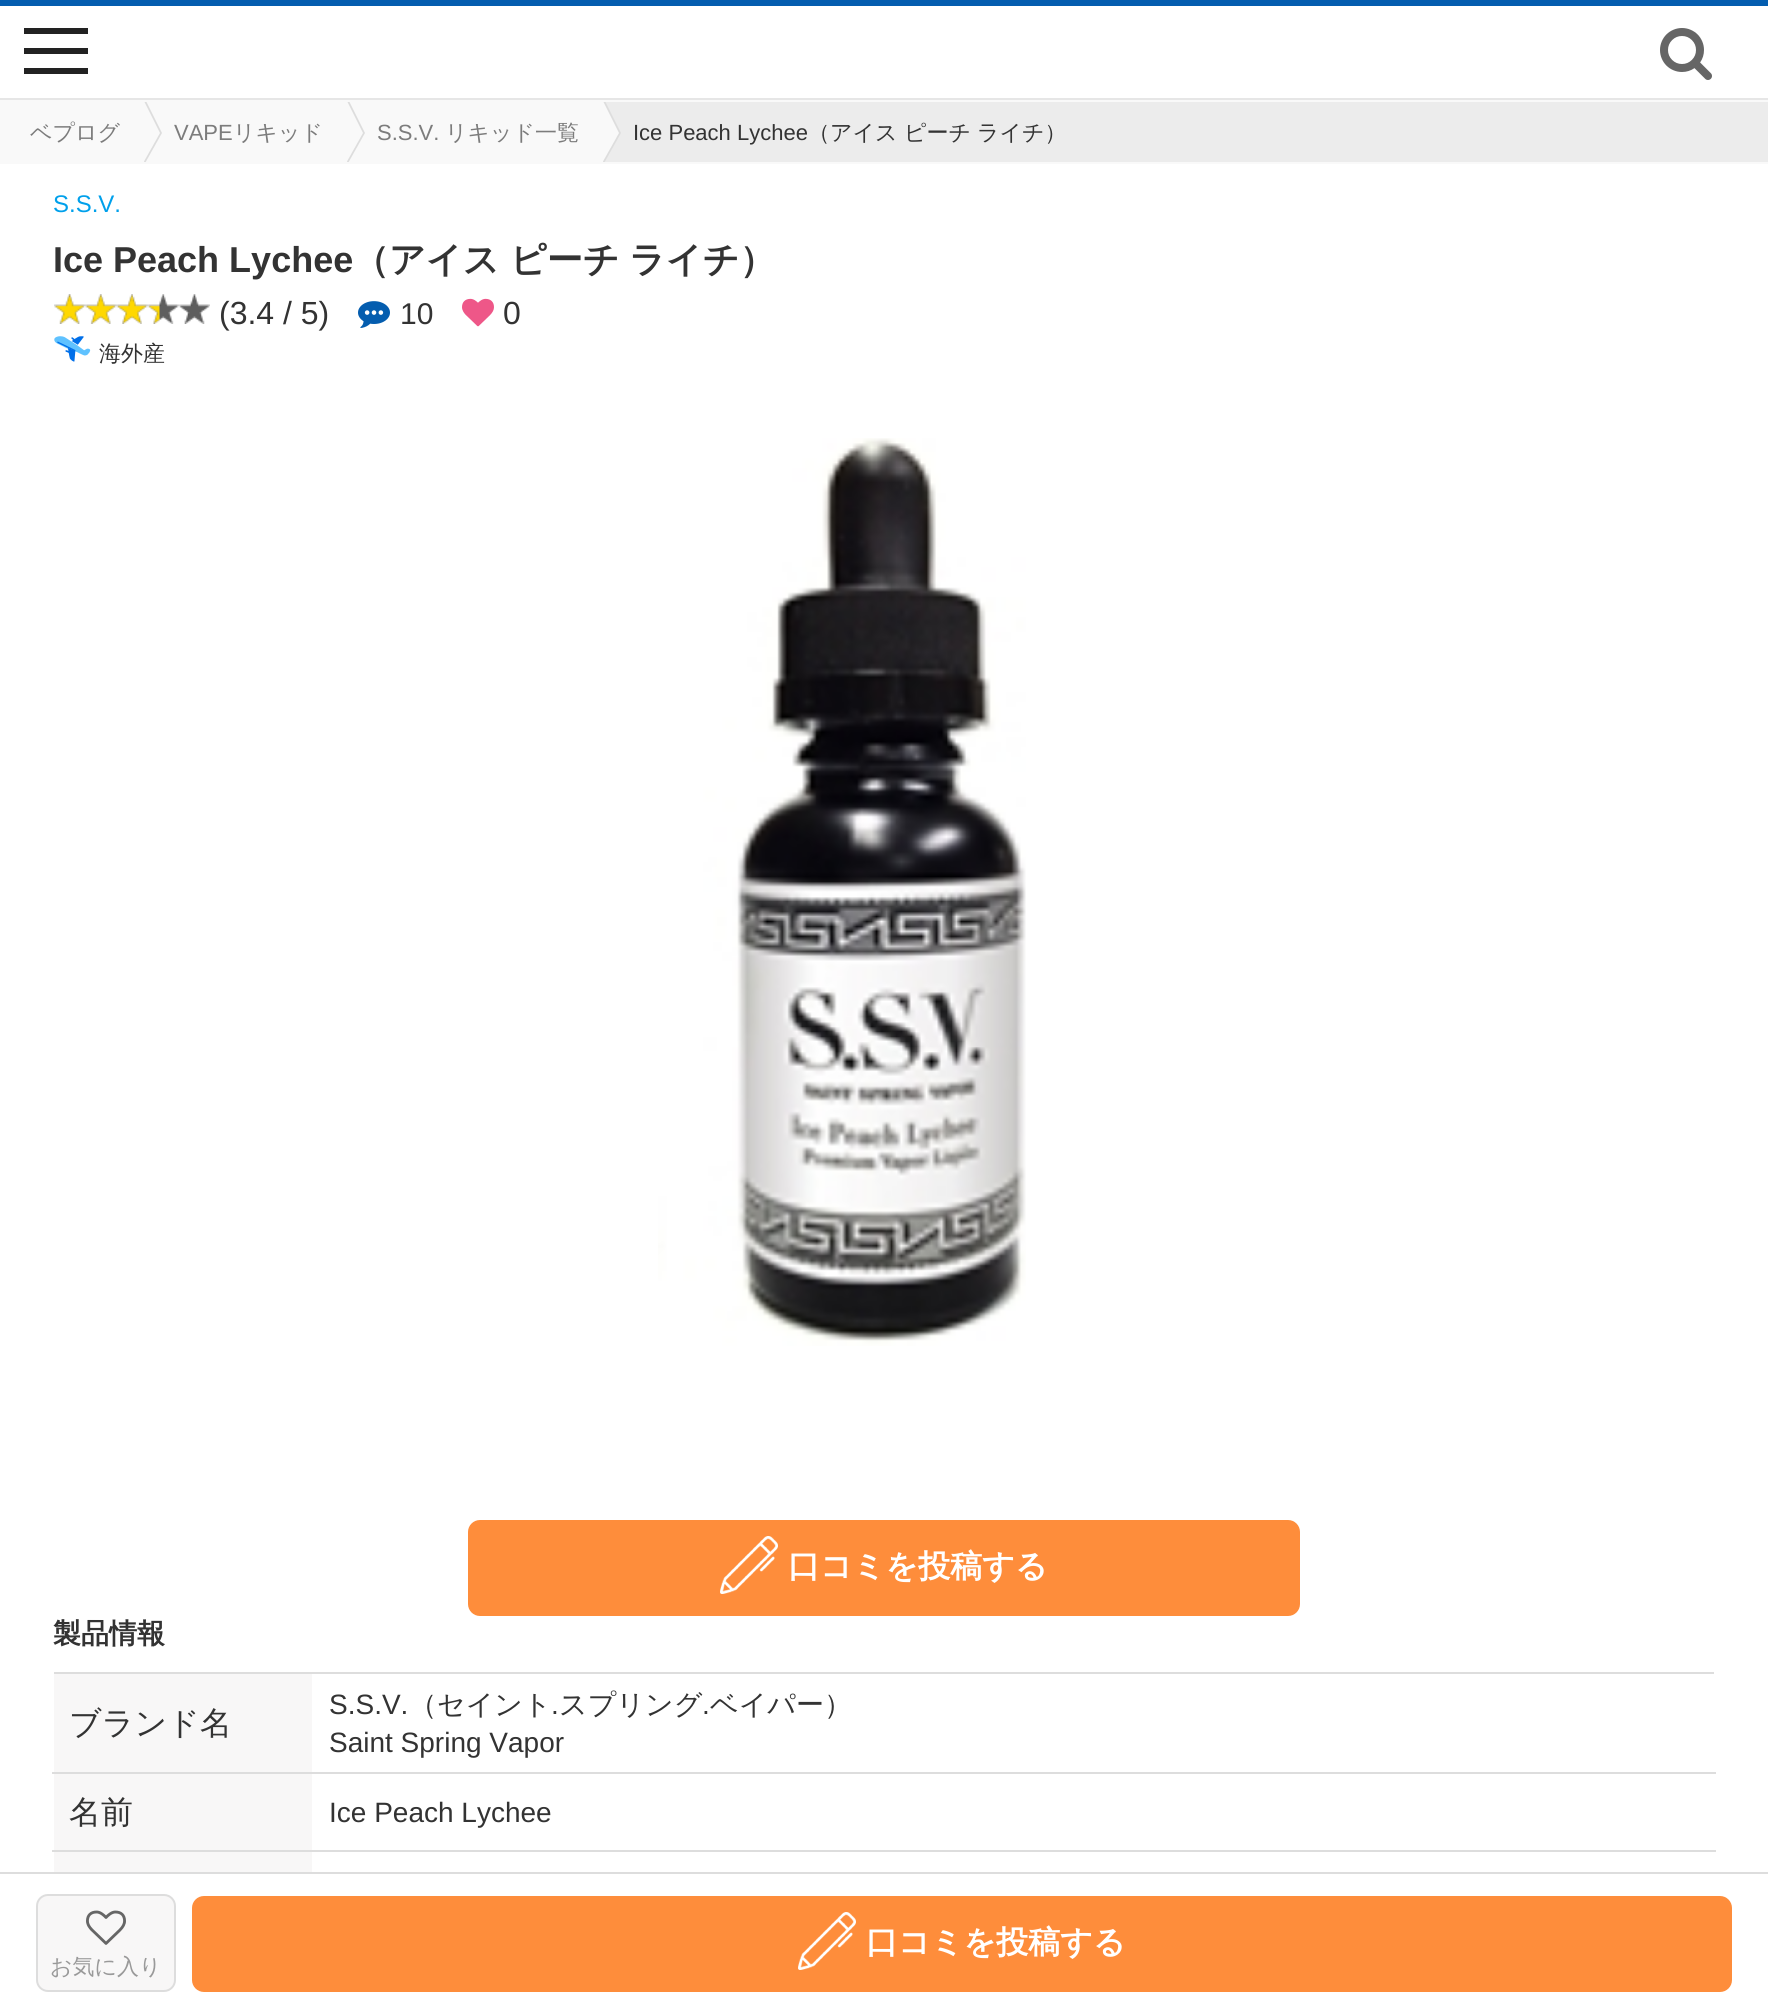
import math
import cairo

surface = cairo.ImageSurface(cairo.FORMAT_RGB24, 1768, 2012)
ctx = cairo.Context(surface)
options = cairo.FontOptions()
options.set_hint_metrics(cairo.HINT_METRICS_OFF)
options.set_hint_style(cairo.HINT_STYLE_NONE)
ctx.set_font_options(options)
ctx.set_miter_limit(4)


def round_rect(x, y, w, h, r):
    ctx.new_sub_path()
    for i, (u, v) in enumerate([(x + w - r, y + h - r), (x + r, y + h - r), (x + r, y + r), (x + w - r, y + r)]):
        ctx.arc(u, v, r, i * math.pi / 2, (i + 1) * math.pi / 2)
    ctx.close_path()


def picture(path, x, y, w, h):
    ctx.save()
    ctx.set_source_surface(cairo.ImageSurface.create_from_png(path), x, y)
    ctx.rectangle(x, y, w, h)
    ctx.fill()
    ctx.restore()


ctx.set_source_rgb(1, 1, 1)
ctx.paint()
ctx.set_source_rgb(0.016, 0.365, 0.686)
ctx.rectangle(0, 0, 1768, 6)
ctx.fill()
ctx.set_source_rgb(0.902, 0.902, 0.902)
ctx.rectangle(0, 98, 1768, 2)
ctx.fill()
picture("img1.png", 1660, 28, 52, 52)
ctx.set_source_rgb(0.922, 0.922, 0.922)
ctx.rectangle(604, 102, 1164, 60)
ctx.fill()
ctx.set_source_rgb(0.973, 0.973, 0.973)
ctx.rectangle(0, 100, 1768, 2)
ctx.fill()
ctx.rectangle(0, 162, 1768, 2)
ctx.fill()
ctx.rectangle(0, 102, 144, 60)
ctx.fill()
ctx.select_font_face("WenQuanYi Zen Hei Medium")
ctx.set_font_size(22)
ctx.set_source_rgb(0.486, 0.486, 0.486)
ctx.move_to(30, 140)
ctx.show_text("ベプログ")
ctx.set_source_rgb(0.973, 0.973, 0.973)
ctx.rectangle(145, 102, 200, 60)
ctx.fill()
ctx.save()
ctx.rectangle(0, 102, 1768, 60)
ctx.clip()
ctx.set_source_rgb(0.867, 0.867, 0.867)
ctx.new_path()
ctx.move_to(144, 165)
ctx.line_to(144, 97)
ctx.line_to(162, 133)
ctx.close_path()
ctx.fill()
ctx.set_source_rgb(0.973, 0.973, 0.973)
ctx.new_path()
ctx.move_to(142, 165)
ctx.line_to(142, 97)
ctx.line_to(160, 133)
ctx.close_path()
ctx.fill()
ctx.restore()
ctx.select_font_face("Liberation Sans")
ctx.set_source_rgb(0.486, 0.486, 0.486)
ctx.move_to(174, 140)
ctx.show_text("VAPE")
ctx.select_font_face("WenQuanYi Zen Hei Medium")
ctx.move_to(233, 140)
ctx.show_text("リキッド")
ctx.set_source_rgb(0.973, 0.973, 0.973)
ctx.rectangle(346, 102, 257, 60)
ctx.fill()
ctx.save()
ctx.rectangle(0, 102, 1768, 60)
ctx.clip()
ctx.set_source_rgb(0.867, 0.867, 0.867)
ctx.new_path()
ctx.move_to(347, 165)
ctx.line_to(347, 97)
ctx.line_to(365, 133)
ctx.close_path()
ctx.fill()
ctx.set_source_rgb(0.973, 0.973, 0.973)
ctx.new_path()
ctx.move_to(345, 165)
ctx.line_to(345, 97)
ctx.line_to(363, 133)
ctx.close_path()
ctx.fill()
ctx.restore()
ctx.select_font_face("Liberation Sans")
ctx.set_source_rgb(0.486, 0.486, 0.486)
ctx.move_to(377, 140)
ctx.show_text("S.S.V.")
ctx.select_font_face("WenQuanYi Zen Hei Medium")
ctx.move_to(445, 140)
ctx.show_text("リキッド一覧")
ctx.save()
ctx.rectangle(0, 102, 1768, 60)
ctx.clip()
ctx.set_source_rgb(0.867, 0.867, 0.867)
ctx.new_path()
ctx.move_to(603, 165)
ctx.line_to(603, 97)
ctx.line_to(621, 133)
ctx.close_path()
ctx.fill()
ctx.set_source_rgb(0.973, 0.973, 0.973)
ctx.new_path()
ctx.move_to(601, 165)
ctx.line_to(601, 97)
ctx.line_to(619, 133)
ctx.close_path()
ctx.fill()
ctx.restore()
ctx.select_font_face("Liberation Sans")
ctx.set_source_rgb(0.2, 0.2, 0.2)
ctx.move_to(633, 140)
ctx.show_text("Ice Peach Lychee")
ctx.select_font_face("WenQuanYi Zen Hei Medium")
ctx.move_to(808, 140)
ctx.show_text("（アイス")
ctx.move_to(904, 140)
ctx.show_text("ピーチ")
ctx.move_to(977, 140)
ctx.show_text("ライチ）")
ctx.set_source_rgb(0.133, 0.133, 0.133)
ctx.rectangle(24, 48, 64, 6)
ctx.fill()
ctx.rectangle(24, 28, 64, 6)
ctx.fill()
ctx.rectangle(24, 68, 64, 6)
ctx.fill()
ctx.select_font_face("Liberation Sans")
ctx.set_font_size(24)
ctx.set_source_rgb(0, 0.627, 0.918)
ctx.move_to(53, 212)
ctx.show_text("S.S.V.")
ctx.select_font_face("Liberation Sans", cairo.FONT_SLANT_NORMAL, cairo.FONT_WEIGHT_BOLD)
ctx.set_font_size(36)
ctx.set_source_rgb(0.2, 0.2, 0.2)
ctx.move_to(53, 272)
ctx.show_text("Ice Peach Lychee")
ctx.select_font_face("WenQuanYi Zen Hei", cairo.FONT_SLANT_NORMAL, cairo.FONT_WEIGHT_BOLD)
ctx.move_to(353, 272)
ctx.show_text("（アイス")
ctx.move_to(510, 272)
ctx.show_text("ピーチ")
ctx.move_to(629, 272)
ctx.show_text("ライチ）")
picture("img2.png", 54, 294, 156, 30)
ctx.select_font_face("Liberation Sans")
ctx.set_font_size(32)
ctx.move_to(219, 324)
ctx.show_text("(3.4 / 5)")
picture("img3.png", 358, 301, 32, 27)
ctx.set_font_size(30)
ctx.move_to(400, 324)
ctx.show_text("10")
picture("img4.png", 462, 298, 32, 29)
ctx.set_font_size(32)
ctx.move_to(503, 324)
ctx.show_text("0")
picture("img5.png", 54, 336, 37, 26)
ctx.select_font_face("WenQuanYi Zen Hei Medium")
ctx.set_font_size(22)
ctx.move_to(99, 361)
ctx.show_text("海外産")
picture("img6.png", 658, 438, 368, 908)
ctx.set_source_rgb(0.996, 0.553, 0.231)
round_rect(468, 1520, 832, 96, 12)
ctx.fill()
picture("img7.png", 720, 1536, 58, 58)
ctx.select_font_face("WenQuanYi Zen Hei", cairo.FONT_SLANT_NORMAL, cairo.FONT_WEIGHT_BOLD)
ctx.set_font_size(32)
ctx.set_source_rgb(1, 1, 1)
ctx.move_to(788, 1577)
ctx.show_text("口コミを投稿する")
ctx.set_font_size(28)
ctx.set_source_rgb(0.2, 0.2, 0.2)
ctx.move_to(53, 1643)
ctx.show_text("製品情報")
ctx.set_source_rgb(0.867, 0.867, 0.867)
ctx.rectangle(54, 1672, 1660, 2)
ctx.fill()
ctx.rectangle(52, 1772, 1664, 2)
ctx.fill()
ctx.set_source_rgb(0.969, 0.965, 0.965)
ctx.rectangle(54, 1674, 258, 98)
ctx.fill()
ctx.select_font_face("WenQuanYi Zen Hei Medium")
ctx.set_font_size(32)
ctx.set_source_rgb(0.2, 0.2, 0.2)
ctx.move_to(69, 1734)
ctx.show_text("ブランド名")
ctx.select_font_face("Liberation Sans")
ctx.set_font_size(28)
ctx.move_to(329, 1714)
ctx.show_text("S.S.V.")
ctx.select_font_face("WenQuanYi Zen Hei Medium")
ctx.move_to(409, 1714)
ctx.show_text("（セイント")
ctx.select_font_face("Liberation Sans")
ctx.move_to(551, 1714)
ctx.show_text(".")
ctx.select_font_face("WenQuanYi Zen Hei Medium")
ctx.move_to(559, 1714)
ctx.show_text("スプリング")
ctx.select_font_face("Liberation Sans")
ctx.move_to(702, 1714)
ctx.show_text(".")
ctx.select_font_face("WenQuanYi Zen Hei Medium")
ctx.move_to(710, 1714)
ctx.show_text("ベイパー）")
ctx.select_font_face("Liberation Sans")
ctx.move_to(329, 1752)
ctx.show_text("Saint Spring Vapor")
ctx.set_source_rgb(0.867, 0.867, 0.867)
ctx.rectangle(52, 1850, 1664, 2)
ctx.fill()
ctx.set_source_rgb(0.969, 0.965, 0.965)
ctx.rectangle(54, 1774, 258, 76)
ctx.fill()
ctx.select_font_face("WenQuanYi Zen Hei Medium")
ctx.set_font_size(32)
ctx.set_source_rgb(0.2, 0.2, 0.2)
ctx.move_to(69, 1823)
ctx.show_text("名前")
ctx.select_font_face("Liberation Sans")
ctx.set_font_size(28)
ctx.move_to(329, 1822)
ctx.show_text("Ice Peach Lychee")
ctx.set_source_rgb(0.969, 0.965, 0.965)
ctx.rectangle(54, 1852, 258, 20)
ctx.fill()
ctx.set_source_rgb(0.867, 0.867, 0.867)
ctx.rectangle(0, 1872, 1768, 2)
ctx.fill()
ctx.set_source_rgb(0.996, 0.553, 0.231)
round_rect(192, 1896, 1540, 96, 12)
ctx.fill()
picture("img7.png", 798, 1912, 58, 58)
ctx.select_font_face("WenQuanYi Zen Hei", cairo.FONT_SLANT_NORMAL, cairo.FONT_WEIGHT_BOLD)
ctx.set_font_size(32)
ctx.set_source_rgb(1, 1, 1)
ctx.move_to(866, 1953)
ctx.show_text("口コミを投稿する")
ctx.set_source_rgb(0.969, 0.965, 0.965)
round_rect(37, 1895, 138, 96, 11)
ctx.fill_preserve()
ctx.set_source_rgb(0.867, 0.867, 0.867)
ctx.stroke()
picture("img8.png", 86, 1910, 40, 35)
ctx.select_font_face("WenQuanYi Zen Hei Medium")
ctx.set_font_size(22)
ctx.set_source_rgb(0.6, 0.6, 0.6)
ctx.move_to(50, 1974)
ctx.show_text("お気に入り")
surface.write_to_png("page.png")
